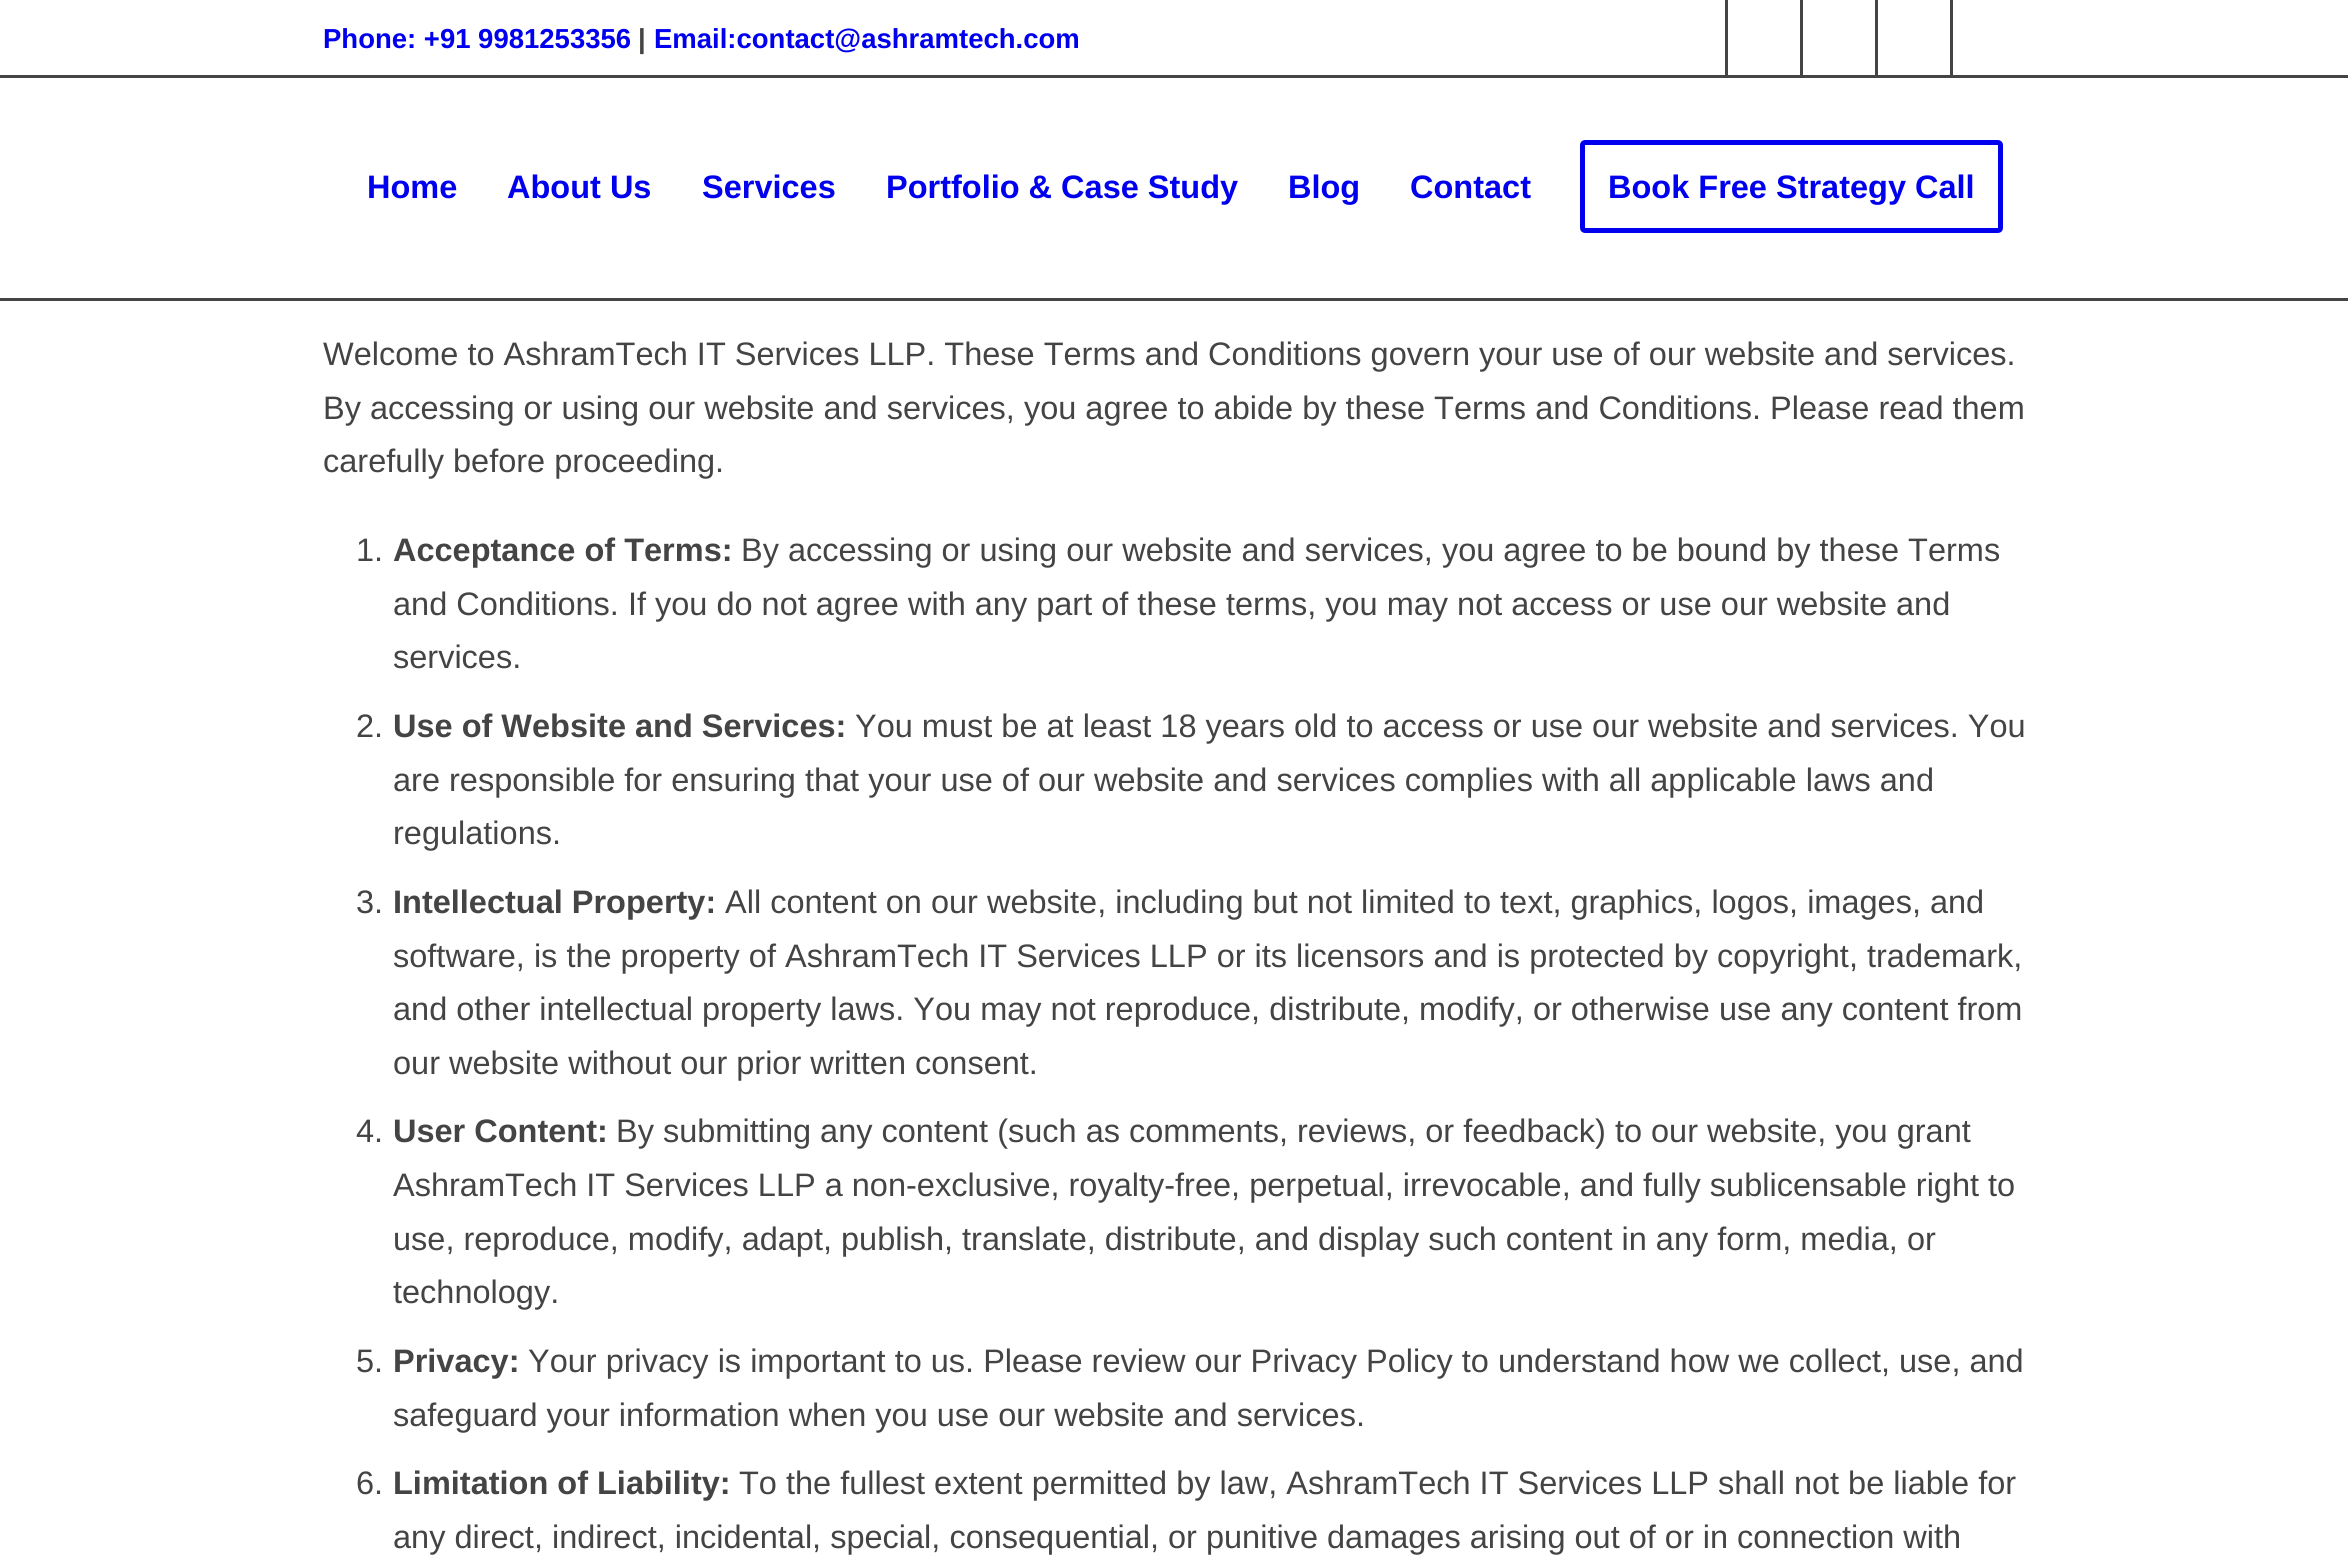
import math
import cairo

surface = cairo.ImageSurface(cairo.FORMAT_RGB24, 2348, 1568)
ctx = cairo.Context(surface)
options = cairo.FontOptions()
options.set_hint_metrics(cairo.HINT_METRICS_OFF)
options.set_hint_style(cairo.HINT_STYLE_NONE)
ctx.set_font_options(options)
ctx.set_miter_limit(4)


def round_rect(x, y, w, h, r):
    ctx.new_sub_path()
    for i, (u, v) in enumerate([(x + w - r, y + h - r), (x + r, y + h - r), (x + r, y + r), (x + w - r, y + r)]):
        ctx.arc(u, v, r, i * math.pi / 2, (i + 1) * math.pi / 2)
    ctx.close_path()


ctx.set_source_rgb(1, 1, 1)
ctx.paint()
ctx.select_font_face("Liberation Sans", cairo.FONT_SLANT_NORMAL, cairo.FONT_WEIGHT_BOLD)
ctx.set_font_size(27.5)
ctx.set_source_rgb(0, 0, 0.933)
ctx.move_to(323, 48)
ctx.show_text("Phone: +91 9981253356")
ctx.set_source_rgb(0.267, 0.267, 0.267)
ctx.move_to(638, 48)
ctx.show_text("|")
ctx.set_source_rgb(0, 0, 0.933)
ctx.move_to(654, 48)
ctx.show_text("Email:contact@ashramtech.com")
ctx.set_source_rgb(0.267, 0.267, 0.267)
ctx.rectangle(1725, 0, 3, 75)
ctx.fill()
ctx.rectangle(1800, 0, 3, 75)
ctx.fill()
ctx.rectangle(1875, 0, 3, 75)
ctx.fill()
ctx.rectangle(1950, 0, 3, 75)
ctx.fill()
ctx.rectangle(0, 75, 2348, 3)
ctx.fill()
ctx.rectangle(0, 298, 2348, 3)
ctx.fill()
ctx.set_font_size(32.5)
ctx.set_source_rgb(0, 0, 0.933)
ctx.move_to(367, 198)
ctx.show_text("Home")
ctx.move_to(507, 198)
ctx.show_text("About Us")
ctx.move_to(702, 198)
ctx.show_text("Services")
ctx.move_to(886, 198)
ctx.show_text("Portfolio & Case Study")
ctx.move_to(1288, 198)
ctx.show_text("Blog")
ctx.move_to(1410, 198)
ctx.show_text("Contact")
round_rect(1582.5, 142.5, 418, 88, 2.5)
ctx.set_line_width(5)
ctx.stroke()
ctx.move_to(1608, 198)
ctx.show_text("Book Free Strategy Call")
ctx.select_font_face("Liberation Sans")
ctx.set_source_rgb(0.267, 0.267, 0.267)
ctx.move_to(323, 365)
ctx.show_text("Welcome to AshramTech IT Services LLP. These Terms and Conditions govern your use of our website and services.")
ctx.move_to(323, 419)
ctx.show_text("By accessing or using our website and services, you agree to abide by these Terms and Conditions. Please read them")
ctx.move_to(323, 472)
ctx.show_text("carefully before proceeding.")
ctx.move_to(356, 561)
ctx.show_text("1.")
ctx.select_font_face("Liberation Sans", cairo.FONT_SLANT_NORMAL, cairo.FONT_WEIGHT_BOLD)
ctx.move_to(393, 561)
ctx.show_text("Acceptance of Terms:")
ctx.select_font_face("Liberation Sans")
ctx.move_to(741, 561)
ctx.show_text("By accessing or using our website and services, you agree to be bound by these Terms")
ctx.move_to(393, 615)
ctx.show_text("and Conditions. If you do not agree with any part of these terms, you may not access or use our website and")
ctx.move_to(393, 668)
ctx.show_text("services.")
ctx.move_to(356, 737)
ctx.show_text("2.")
ctx.select_font_face("Liberation Sans", cairo.FONT_SLANT_NORMAL, cairo.FONT_WEIGHT_BOLD)
ctx.move_to(393, 737)
ctx.show_text("Use of Website and Services:")
ctx.select_font_face("Liberation Sans")
ctx.move_to(855, 737)
ctx.show_text("You must be at least 18 years old to access or use our website and services. You")
ctx.move_to(393, 791)
ctx.show_text("are responsible for ensuring that your use of our website and services complies with all applicable laws and")
ctx.move_to(393, 844)
ctx.show_text("regulations.")
ctx.move_to(356, 913)
ctx.show_text("3.")
ctx.select_font_face("Liberation Sans", cairo.FONT_SLANT_NORMAL, cairo.FONT_WEIGHT_BOLD)
ctx.move_to(393, 913)
ctx.show_text("Intellectual Property:")
ctx.select_font_face("Liberation Sans")
ctx.move_to(725, 913)
ctx.show_text("All content on our website, including but not limited to text, graphics, logos, images, and")
ctx.move_to(393, 967)
ctx.show_text("software, is the property of AshramTech IT Services LLP or its licensors and is protected by copyright, trademark,")
ctx.move_to(393, 1020)
ctx.show_text("and other intellectual property laws. You may not reproduce, distribute, modify, or otherwise use any content from")
ctx.move_to(393, 1074)
ctx.show_text("our website without our prior written consent.")
ctx.move_to(356, 1142)
ctx.show_text("4.")
ctx.select_font_face("Liberation Sans", cairo.FONT_SLANT_NORMAL, cairo.FONT_WEIGHT_BOLD)
ctx.move_to(393, 1142)
ctx.show_text("User Content:")
ctx.select_font_face("Liberation Sans")
ctx.move_to(616, 1142)
ctx.show_text("By submitting any content (such as comments, reviews, or feedback) to our website, you grant")
ctx.move_to(393, 1196)
ctx.show_text("AshramTech IT Services LLP a non-exclusive, royalty-free, perpetual, irrevocable, and fully sublicensable right to")
ctx.move_to(393, 1250)
ctx.show_text("use, reproduce, modify, adapt, publish, translate, distribute, and display such content in any form, media, or")
ctx.move_to(393, 1303)
ctx.show_text("technology.")
ctx.move_to(356, 1372)
ctx.show_text("5.")
ctx.select_font_face("Liberation Sans", cairo.FONT_SLANT_NORMAL, cairo.FONT_WEIGHT_BOLD)
ctx.move_to(393, 1372)
ctx.show_text("Privacy:")
ctx.select_font_face("Liberation Sans")
ctx.move_to(528, 1372)
ctx.show_text("Your privacy is important to us. Please review our Privacy Policy to understand how we collect, use, and")
ctx.move_to(393, 1426)
ctx.show_text("safeguard your information when you use our website and services.")
ctx.move_to(356, 1494)
ctx.show_text("6.")
ctx.select_font_face("Liberation Sans", cairo.FONT_SLANT_NORMAL, cairo.FONT_WEIGHT_BOLD)
ctx.move_to(393, 1494)
ctx.show_text("Limitation of Liability:")
ctx.select_font_face("Liberation Sans")
ctx.move_to(739, 1494)
ctx.show_text("To the fullest extent permitted by law, AshramTech IT Services LLP shall not be liable for")
ctx.move_to(393, 1548)
ctx.show_text("any direct, indirect, incidental, special, consequential, or punitive damages arising out of or in connection with")
surface.write_to_png("page.png")
